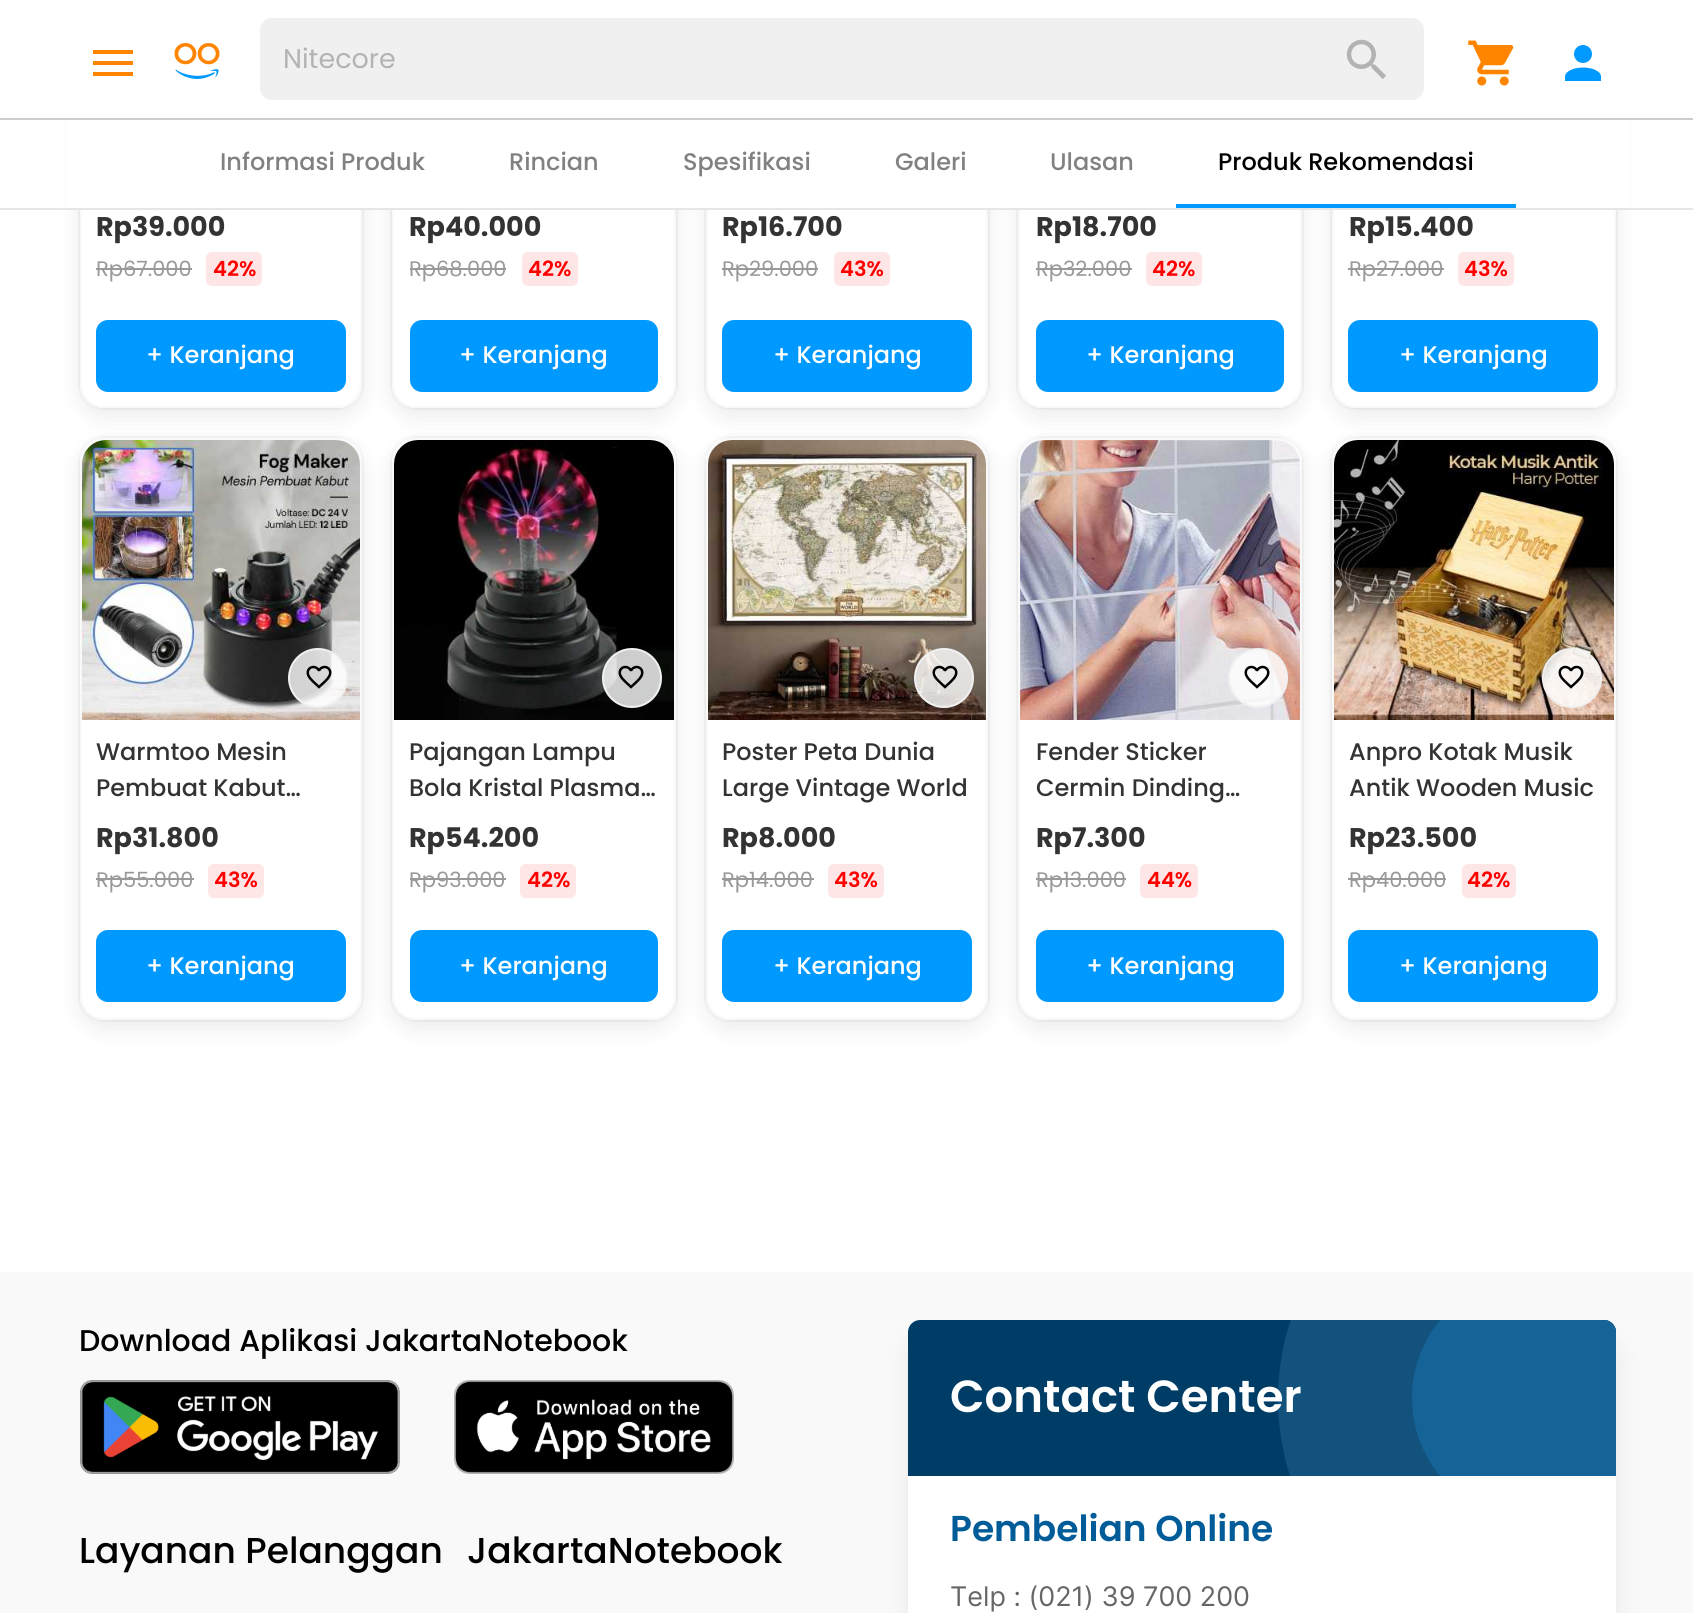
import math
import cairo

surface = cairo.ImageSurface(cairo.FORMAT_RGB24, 1693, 1613)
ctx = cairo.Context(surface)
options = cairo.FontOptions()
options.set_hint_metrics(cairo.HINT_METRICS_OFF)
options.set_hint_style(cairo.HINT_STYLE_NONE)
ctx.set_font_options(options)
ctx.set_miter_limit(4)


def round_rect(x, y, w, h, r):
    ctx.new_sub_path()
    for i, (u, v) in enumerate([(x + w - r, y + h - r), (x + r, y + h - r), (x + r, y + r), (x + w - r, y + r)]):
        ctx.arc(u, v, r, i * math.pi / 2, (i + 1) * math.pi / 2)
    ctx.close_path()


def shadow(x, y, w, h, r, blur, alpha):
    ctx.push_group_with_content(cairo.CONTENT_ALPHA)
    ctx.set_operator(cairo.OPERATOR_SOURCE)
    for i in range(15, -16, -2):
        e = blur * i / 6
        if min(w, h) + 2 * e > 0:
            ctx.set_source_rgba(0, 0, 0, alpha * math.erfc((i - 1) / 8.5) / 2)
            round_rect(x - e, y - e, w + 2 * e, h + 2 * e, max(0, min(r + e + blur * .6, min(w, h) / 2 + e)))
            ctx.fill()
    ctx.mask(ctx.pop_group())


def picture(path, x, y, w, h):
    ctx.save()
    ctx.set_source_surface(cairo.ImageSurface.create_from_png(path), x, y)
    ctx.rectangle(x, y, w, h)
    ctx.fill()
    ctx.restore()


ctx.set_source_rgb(1, 1, 1)
ctx.paint()
ctx.save()
ctx.set_fill_rule(cairo.FILL_RULE_EVEN_ODD)
ctx.new_path()
ctx.move_to(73, 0)
ctx.line_to(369, 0)
ctx.line_to(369, 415)
ctx.line_to(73, 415)
ctx.close_path()
ctx.move_to(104, -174)
ctx.line_to(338, -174)
ctx.curve_to(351.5, -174, 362, -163.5, 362, -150)
ctx.line_to(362, 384)
ctx.curve_to(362, 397.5, 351.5, 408, 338, 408)
ctx.line_to(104, 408)
ctx.curve_to(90.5, 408, 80, 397.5, 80, 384)
ctx.line_to(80, -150)
ctx.curve_to(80, -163.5, 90.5, -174, 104, -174)
ctx.close_path()
ctx.clip()
ctx.set_source_rgb(0, 0, 0)
shadow(80, -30, 282, 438, 24, 2, 0.12)
ctx.restore()
ctx.save()
ctx.set_fill_rule(cairo.FILL_RULE_EVEN_ODD)
ctx.new_path()
ctx.move_to(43, 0)
ctx.line_to(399, 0)
ctx.line_to(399, 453)
ctx.line_to(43, 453)
ctx.close_path()
ctx.move_to(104, -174)
ctx.line_to(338, -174)
ctx.curve_to(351.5, -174, 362, -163.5, 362, -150)
ctx.line_to(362, 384)
ctx.curve_to(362, 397.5, 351.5, 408, 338, 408)
ctx.line_to(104, 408)
ctx.curve_to(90.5, 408, 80, 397.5, 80, 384)
ctx.line_to(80, -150)
ctx.curve_to(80, -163.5, 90.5, -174, 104, -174)
ctx.close_path()
ctx.clip()
ctx.set_source_rgb(0, 0, 0)
shadow(80, -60, 282, 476, 24, 12, 0.08)
ctx.restore()
round_rect(81, -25, 280, 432, 23)
ctx.set_source_rgb(0.973, 0.973, 0.973)
ctx.stroke()
ctx.save()
ctx.set_fill_rule(cairo.FILL_RULE_EVEN_ODD)
ctx.new_path()
ctx.move_to(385, 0)
ctx.line_to(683, 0)
ctx.line_to(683, 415)
ctx.line_to(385, 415)
ctx.close_path()
ctx.move_to(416, -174)
ctx.line_to(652, -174)
ctx.curve_to(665.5, -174, 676, -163.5, 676, -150)
ctx.line_to(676, 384)
ctx.curve_to(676, 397.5, 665.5, 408, 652, 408)
ctx.line_to(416, 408)
ctx.curve_to(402.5, 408, 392, 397.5, 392, 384)
ctx.line_to(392, -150)
ctx.curve_to(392, -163.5, 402.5, -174, 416, -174)
ctx.close_path()
ctx.clip()
ctx.set_source_rgb(0, 0, 0)
shadow(392, -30, 284, 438, 24, 2, 0.12)
ctx.restore()
ctx.save()
ctx.set_fill_rule(cairo.FILL_RULE_EVEN_ODD)
ctx.new_path()
ctx.move_to(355, 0)
ctx.line_to(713, 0)
ctx.line_to(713, 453)
ctx.line_to(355, 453)
ctx.close_path()
ctx.move_to(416, -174)
ctx.line_to(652, -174)
ctx.curve_to(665.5, -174, 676, -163.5, 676, -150)
ctx.line_to(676, 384)
ctx.curve_to(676, 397.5, 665.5, 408, 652, 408)
ctx.line_to(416, 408)
ctx.curve_to(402.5, 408, 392, 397.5, 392, 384)
ctx.line_to(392, -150)
ctx.curve_to(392, -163.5, 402.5, -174, 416, -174)
ctx.close_path()
ctx.clip()
ctx.set_source_rgb(0, 0, 0)
shadow(392, -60, 284, 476, 24, 12, 0.08)
ctx.restore()
round_rect(393, -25, 282, 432, 23)
ctx.stroke()
ctx.save()
ctx.set_fill_rule(cairo.FILL_RULE_EVEN_ODD)
ctx.new_path()
ctx.move_to(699, 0)
ctx.line_to(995, 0)
ctx.line_to(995, 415)
ctx.line_to(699, 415)
ctx.close_path()
ctx.move_to(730, -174)
ctx.line_to(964, -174)
ctx.curve_to(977.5, -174, 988, -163.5, 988, -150)
ctx.line_to(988, 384)
ctx.curve_to(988, 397.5, 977.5, 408, 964, 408)
ctx.line_to(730, 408)
ctx.curve_to(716.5, 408, 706, 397.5, 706, 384)
ctx.line_to(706, -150)
ctx.curve_to(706, -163.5, 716.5, -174, 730, -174)
ctx.close_path()
ctx.clip()
ctx.set_source_rgb(0, 0, 0)
shadow(706, -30, 282, 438, 24, 2, 0.12)
ctx.restore()
ctx.save()
ctx.set_fill_rule(cairo.FILL_RULE_EVEN_ODD)
ctx.new_path()
ctx.move_to(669, 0)
ctx.line_to(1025, 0)
ctx.line_to(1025, 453)
ctx.line_to(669, 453)
ctx.close_path()
ctx.move_to(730, -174)
ctx.line_to(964, -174)
ctx.curve_to(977.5, -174, 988, -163.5, 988, -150)
ctx.line_to(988, 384)
ctx.curve_to(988, 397.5, 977.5, 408, 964, 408)
ctx.line_to(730, 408)
ctx.curve_to(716.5, 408, 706, 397.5, 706, 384)
ctx.line_to(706, -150)
ctx.curve_to(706, -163.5, 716.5, -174, 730, -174)
ctx.close_path()
ctx.clip()
ctx.set_source_rgb(0, 0, 0)
shadow(706, -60, 282, 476, 24, 12, 0.08)
ctx.restore()
round_rect(707, -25, 280, 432, 23)
ctx.stroke()
ctx.save()
ctx.set_fill_rule(cairo.FILL_RULE_EVEN_ODD)
ctx.new_path()
ctx.move_to(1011, 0)
ctx.line_to(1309, 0)
ctx.line_to(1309, 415)
ctx.line_to(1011, 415)
ctx.close_path()
ctx.move_to(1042, -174)
ctx.line_to(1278, -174)
ctx.curve_to(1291.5, -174, 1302, -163.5, 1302, -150)
ctx.line_to(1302, 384)
ctx.curve_to(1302, 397.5, 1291.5, 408, 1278, 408)
ctx.line_to(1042, 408)
ctx.curve_to(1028.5, 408, 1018, 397.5, 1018, 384)
ctx.line_to(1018, -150)
ctx.curve_to(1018, -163.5, 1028.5, -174, 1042, -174)
ctx.close_path()
ctx.clip()
ctx.set_source_rgb(0, 0, 0)
shadow(1018, -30, 284, 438, 24, 2, 0.12)
ctx.restore()
ctx.save()
ctx.set_fill_rule(cairo.FILL_RULE_EVEN_ODD)
ctx.new_path()
ctx.move_to(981, 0)
ctx.line_to(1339, 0)
ctx.line_to(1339, 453)
ctx.line_to(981, 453)
ctx.close_path()
ctx.move_to(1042, -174)
ctx.line_to(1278, -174)
ctx.curve_to(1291.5, -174, 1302, -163.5, 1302, -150)
ctx.line_to(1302, 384)
ctx.curve_to(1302, 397.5, 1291.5, 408, 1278, 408)
ctx.line_to(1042, 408)
ctx.curve_to(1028.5, 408, 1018, 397.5, 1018, 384)
ctx.line_to(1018, -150)
ctx.curve_to(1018, -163.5, 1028.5, -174, 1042, -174)
ctx.close_path()
ctx.clip()
ctx.set_source_rgb(0, 0, 0)
shadow(1018, -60, 284, 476, 24, 12, 0.08)
ctx.restore()
round_rect(1019, -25, 282, 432, 23)
ctx.stroke()
ctx.save()
ctx.set_fill_rule(cairo.FILL_RULE_EVEN_ODD)
ctx.new_path()
ctx.move_to(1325, 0)
ctx.line_to(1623, 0)
ctx.line_to(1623, 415)
ctx.line_to(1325, 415)
ctx.close_path()
ctx.move_to(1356, -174)
ctx.line_to(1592, -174)
ctx.curve_to(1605.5, -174, 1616, -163.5, 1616, -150)
ctx.line_to(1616, 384)
ctx.curve_to(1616, 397.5, 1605.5, 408, 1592, 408)
ctx.line_to(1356, 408)
ctx.curve_to(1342.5, 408, 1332, 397.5, 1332, 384)
ctx.line_to(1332, -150)
ctx.curve_to(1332, -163.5, 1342.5, -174, 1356, -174)
ctx.close_path()
ctx.clip()
ctx.set_source_rgb(0, 0, 0)
shadow(1332, -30, 284, 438, 24, 2, 0.12)
ctx.restore()
ctx.save()
ctx.set_fill_rule(cairo.FILL_RULE_EVEN_ODD)
ctx.new_path()
ctx.move_to(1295, 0)
ctx.line_to(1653, 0)
ctx.line_to(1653, 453)
ctx.line_to(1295, 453)
ctx.close_path()
ctx.move_to(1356, -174)
ctx.line_to(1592, -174)
ctx.curve_to(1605.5, -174, 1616, -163.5, 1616, -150)
ctx.line_to(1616, 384)
ctx.curve_to(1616, 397.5, 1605.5, 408, 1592, 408)
ctx.line_to(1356, 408)
ctx.curve_to(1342.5, 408, 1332, 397.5, 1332, 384)
ctx.line_to(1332, -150)
ctx.curve_to(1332, -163.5, 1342.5, -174, 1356, -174)
ctx.close_path()
ctx.clip()
ctx.set_source_rgb(0, 0, 0)
shadow(1332, -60, 284, 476, 24, 12, 0.08)
ctx.restore()
round_rect(1333, -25, 282, 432, 23)
ctx.stroke()
ctx.set_source_rgb(1, 1, 1)
ctx.rectangle(66, 0, 1564, 118)
ctx.fill()
ctx.set_source_rgb(0.8, 0.8, 0.8)
ctx.rectangle(0, 118, 1693, 2)
ctx.fill()
ctx.set_source_rgb(1, 0.522, 0)
ctx.new_path()
ctx.move_to(93, 50)
ctx.line_to(133, 50)
ctx.line_to(133, 54)
ctx.line_to(93, 54)
ctx.line_to(93, 50)
ctx.move_to(93, 61)
ctx.line_to(133, 61)
ctx.line_to(133, 65)
ctx.line_to(93, 65)
ctx.line_to(93, 61)
ctx.move_to(93, 72)
ctx.line_to(133, 72)
ctx.line_to(133, 76)
ctx.line_to(93, 76)
ctx.close_path()
ctx.fill()
picture("img1.png", 174, 43, 46, 36)
ctx.set_source_rgb(0.941, 0.941, 0.941)
round_rect(260, 18, 1164, 82, 12)
ctx.fill()
ctx.select_font_face("Poppins")
ctx.set_font_size(27)
ctx.set_source_rgb(0.702, 0.702, 0.702)
ctx.move_to(283, 68)
ctx.show_text("Nitecore")
picture("img2.png", 1346, 39, 40, 40)
picture("img3.png", 1468, 40, 46, 46)
picture("img4.png", 1565, 45, 36, 36)
ctx.set_source_rgba(1, 1, 1, 0.99)
ctx.rectangle(67, 120, 1562, 88)
ctx.fill()
ctx.set_source_rgba(0.902, 0.902, 0.902, 0.99)
ctx.rectangle(0, 208, 1693, 2)
ctx.fill()
ctx.select_font_face("Poppins Medium")
ctx.set_font_size(24)
ctx.set_source_rgb(0.506, 0.506, 0.506)
ctx.move_to(220, 170)
ctx.show_text("Informasi Produk")
ctx.move_to(509, 170)
ctx.show_text("Rincian")
ctx.move_to(683, 170)
ctx.show_text("Spesifikasi")
ctx.move_to(895, 170)
ctx.show_text("Galeri")
ctx.move_to(1050, 170)
ctx.show_text("Ulasan")
ctx.set_source_rgb(0.008, 0.604, 1)
ctx.rectangle(1176, 204, 340, 4)
ctx.fill()
ctx.set_source_rgb(0, 0, 0)
ctx.move_to(1218, 170)
ctx.show_text("Produk Rekomendasi")
ctx.select_font_face("Poppins", cairo.FONT_SLANT_NORMAL, cairo.FONT_WEIGHT_BOLD)
ctx.set_font_size(27)
ctx.set_source_rgb(0.2, 0.2, 0.2)
ctx.move_to(96, 236)
ctx.show_text("Rp39.000")
ctx.select_font_face("Poppins")
ctx.set_font_size(21)
ctx.set_source_rgb(0.6, 0.6, 0.6)
ctx.move_to(96, 276)
ctx.show_text("Rp67.000")
ctx.rectangle(96, 268, 96, 2)
ctx.fill()
ctx.set_source_rgb(1, 0.902, 0.902)
round_rect(206, 252, 56, 34, 6)
ctx.fill()
ctx.select_font_face("Poppins SemiBold")
ctx.set_source_rgb(1, 0, 0)
ctx.move_to(213, 276)
ctx.show_text("42%")
ctx.set_source_rgb(0, 0.6, 1)
round_rect(96, 320, 250, 72, 12)
ctx.fill()
ctx.select_font_face("Poppins Medium")
ctx.set_font_size(24)
ctx.set_source_rgb(1, 1, 1)
ctx.move_to(146, 363)
ctx.show_text("+ Keranjang")
ctx.select_font_face("Poppins", cairo.FONT_SLANT_NORMAL, cairo.FONT_WEIGHT_BOLD)
ctx.set_font_size(27)
ctx.set_source_rgb(0.2, 0.2, 0.2)
ctx.move_to(409, 236)
ctx.show_text("Rp40.000")
ctx.select_font_face("Poppins")
ctx.set_font_size(21)
ctx.set_source_rgb(0.6, 0.6, 0.6)
ctx.move_to(409, 276)
ctx.show_text("Rp68.000")
ctx.rectangle(410, 268, 96, 2)
ctx.fill()
ctx.set_source_rgb(1, 0.902, 0.902)
round_rect(522, 252, 56, 34, 6)
ctx.fill()
ctx.select_font_face("Poppins SemiBold")
ctx.set_source_rgb(1, 0, 0)
ctx.move_to(528, 276)
ctx.show_text("42%")
ctx.set_source_rgb(0, 0.6, 1)
round_rect(410, 320, 248, 72, 12)
ctx.fill()
ctx.select_font_face("Poppins Medium")
ctx.set_font_size(24)
ctx.set_source_rgb(1, 1, 1)
ctx.move_to(459, 363)
ctx.show_text("+ Keranjang")
ctx.select_font_face("Poppins", cairo.FONT_SLANT_NORMAL, cairo.FONT_WEIGHT_BOLD)
ctx.set_font_size(27)
ctx.set_source_rgb(0.2, 0.2, 0.2)
ctx.move_to(722, 236)
ctx.show_text("Rp16.700")
ctx.select_font_face("Poppins")
ctx.set_font_size(21)
ctx.set_source_rgb(0.6, 0.6, 0.6)
ctx.move_to(722, 276)
ctx.show_text("Rp29.000")
ctx.rectangle(722, 268, 96, 2)
ctx.fill()
ctx.set_source_rgb(1, 0.902, 0.902)
round_rect(834, 252, 56, 34, 6)
ctx.fill()
ctx.select_font_face("Poppins SemiBold")
ctx.set_source_rgb(1, 0, 0)
ctx.move_to(840, 276)
ctx.show_text("43%")
ctx.set_source_rgb(0, 0.6, 1)
round_rect(722, 320, 250, 72, 12)
ctx.fill()
ctx.select_font_face("Poppins Medium")
ctx.set_font_size(24)
ctx.set_source_rgb(1, 1, 1)
ctx.move_to(773, 363)
ctx.show_text("+ Keranjang")
ctx.select_font_face("Poppins", cairo.FONT_SLANT_NORMAL, cairo.FONT_WEIGHT_BOLD)
ctx.set_font_size(27)
ctx.set_source_rgb(0.2, 0.2, 0.2)
ctx.move_to(1036, 236)
ctx.show_text("Rp18.700")
ctx.select_font_face("Poppins")
ctx.set_font_size(21)
ctx.set_source_rgb(0.6, 0.6, 0.6)
ctx.move_to(1036, 276)
ctx.show_text("Rp32.000")
ctx.rectangle(1036, 268, 96, 2)
ctx.fill()
ctx.set_source_rgb(1, 0.902, 0.902)
round_rect(1146, 252, 56, 34, 6)
ctx.fill()
ctx.select_font_face("Poppins SemiBold")
ctx.set_source_rgb(1, 0, 0)
ctx.move_to(1152, 276)
ctx.show_text("42%")
ctx.set_source_rgb(0, 0.6, 1)
round_rect(1036, 320, 248, 72, 12)
ctx.fill()
ctx.select_font_face("Poppins Medium")
ctx.set_font_size(24)
ctx.set_source_rgb(1, 1, 1)
ctx.move_to(1086, 363)
ctx.show_text("+ Keranjang")
ctx.select_font_face("Poppins", cairo.FONT_SLANT_NORMAL, cairo.FONT_WEIGHT_BOLD)
ctx.set_font_size(27)
ctx.set_source_rgb(0.2, 0.2, 0.2)
ctx.move_to(1349, 236)
ctx.show_text("Rp15.400")
ctx.select_font_face("Poppins")
ctx.set_font_size(21)
ctx.set_source_rgb(0.6, 0.6, 0.6)
ctx.move_to(1349, 276)
ctx.show_text("Rp27.000")
ctx.rectangle(1348, 268, 96, 2)
ctx.fill()
ctx.set_source_rgb(1, 0.902, 0.902)
round_rect(1458, 252, 56, 34, 6)
ctx.fill()
ctx.select_font_face("Poppins SemiBold")
ctx.set_source_rgb(1, 0, 0)
ctx.move_to(1464, 276)
ctx.show_text("43%")
ctx.set_source_rgb(0, 0.6, 1)
round_rect(1348, 320, 250, 72, 12)
ctx.fill()
ctx.select_font_face("Poppins Medium")
ctx.set_font_size(24)
ctx.set_source_rgb(1, 1, 1)
ctx.move_to(1399, 363)
ctx.show_text("+ Keranjang")
ctx.save()
ctx.set_fill_rule(cairo.FILL_RULE_EVEN_ODD)
ctx.new_path()
ctx.move_to(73, 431)
ctx.line_to(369, 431)
ctx.line_to(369, 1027)
ctx.line_to(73, 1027)
ctx.close_path()
ctx.move_to(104, 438)
ctx.line_to(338, 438)
ctx.curve_to(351.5, 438, 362, 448.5, 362, 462)
ctx.line_to(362, 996)
ctx.curve_to(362, 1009.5, 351.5, 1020, 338, 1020)
ctx.line_to(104, 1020)
ctx.curve_to(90.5, 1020, 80, 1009.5, 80, 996)
ctx.line_to(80, 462)
ctx.curve_to(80, 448.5, 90.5, 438, 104, 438)
ctx.close_path()
ctx.clip()
ctx.set_source_rgb(0, 0, 0)
shadow(80, 438, 282, 582, 24, 2, 0.12)
ctx.restore()
ctx.save()
ctx.set_fill_rule(cairo.FILL_RULE_EVEN_ODD)
ctx.new_path()
ctx.move_to(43, 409)
ctx.line_to(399, 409)
ctx.line_to(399, 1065)
ctx.line_to(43, 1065)
ctx.close_path()
ctx.move_to(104, 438)
ctx.line_to(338, 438)
ctx.curve_to(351.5, 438, 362, 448.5, 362, 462)
ctx.line_to(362, 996)
ctx.curve_to(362, 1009.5, 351.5, 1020, 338, 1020)
ctx.line_to(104, 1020)
ctx.curve_to(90.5, 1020, 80, 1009.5, 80, 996)
ctx.line_to(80, 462)
ctx.curve_to(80, 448.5, 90.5, 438, 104, 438)
ctx.close_path()
ctx.clip()
ctx.set_source_rgb(0, 0, 0)
shadow(80, 446, 282, 582, 24, 12, 0.08)
ctx.restore()
round_rect(81, 439, 280, 580, 23)
ctx.set_source_rgb(0.973, 0.973, 0.973)
ctx.stroke()
picture("img5.png", 82, 440, 278, 280)
ctx.set_source_rgba(1, 1, 1, 0.8)
ctx.arc(318, 678, 29, 0, 2 * math.pi)
ctx.fill_preserve()
ctx.set_source_rgb(0.941, 0.941, 0.941)
ctx.stroke()
picture("img6.png", 306, 665, 26, 24)
ctx.set_source_rgb(0.2, 0.2, 0.2)
ctx.move_to(96, 760)
ctx.show_text("Warmtoo Mesin")
ctx.move_to(96, 796)
ctx.show_text("Pembuat Kabut…")
ctx.select_font_face("Poppins", cairo.FONT_SLANT_NORMAL, cairo.FONT_WEIGHT_BOLD)
ctx.set_font_size(27)
ctx.move_to(96, 847)
ctx.show_text("Rp31.800")
ctx.select_font_face("Poppins")
ctx.set_font_size(21)
ctx.set_source_rgb(0.6, 0.6, 0.6)
ctx.move_to(96, 887)
ctx.show_text("Rp55.000")
ctx.rectangle(96, 878, 98, 2)
ctx.fill()
ctx.set_source_rgb(1, 0.902, 0.902)
round_rect(208, 864, 56, 34, 6)
ctx.fill()
ctx.select_font_face("Poppins SemiBold")
ctx.set_source_rgb(1, 0, 0)
ctx.move_to(214, 887)
ctx.show_text("43%")
ctx.set_source_rgb(0, 0.6, 1)
round_rect(96, 930, 250, 72, 12)
ctx.fill()
ctx.select_font_face("Poppins Medium")
ctx.set_font_size(24)
ctx.set_source_rgb(1, 1, 1)
ctx.move_to(146, 974)
ctx.show_text("+ Keranjang")
ctx.save()
ctx.set_fill_rule(cairo.FILL_RULE_EVEN_ODD)
ctx.new_path()
ctx.move_to(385, 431)
ctx.line_to(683, 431)
ctx.line_to(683, 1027)
ctx.line_to(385, 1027)
ctx.close_path()
ctx.move_to(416, 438)
ctx.line_to(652, 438)
ctx.curve_to(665.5, 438, 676, 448.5, 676, 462)
ctx.line_to(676, 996)
ctx.curve_to(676, 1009.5, 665.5, 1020, 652, 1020)
ctx.line_to(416, 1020)
ctx.curve_to(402.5, 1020, 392, 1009.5, 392, 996)
ctx.line_to(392, 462)
ctx.curve_to(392, 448.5, 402.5, 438, 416, 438)
ctx.close_path()
ctx.clip()
ctx.set_source_rgb(0, 0, 0)
shadow(392, 438, 284, 582, 24, 2, 0.12)
ctx.restore()
ctx.save()
ctx.set_fill_rule(cairo.FILL_RULE_EVEN_ODD)
ctx.new_path()
ctx.move_to(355, 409)
ctx.line_to(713, 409)
ctx.line_to(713, 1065)
ctx.line_to(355, 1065)
ctx.close_path()
ctx.move_to(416, 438)
ctx.line_to(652, 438)
ctx.curve_to(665.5, 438, 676, 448.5, 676, 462)
ctx.line_to(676, 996)
ctx.curve_to(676, 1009.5, 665.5, 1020, 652, 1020)
ctx.line_to(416, 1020)
ctx.curve_to(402.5, 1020, 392, 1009.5, 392, 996)
ctx.line_to(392, 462)
ctx.curve_to(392, 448.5, 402.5, 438, 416, 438)
ctx.close_path()
ctx.clip()
ctx.set_source_rgb(0, 0, 0)
shadow(392, 446, 284, 582, 24, 12, 0.08)
ctx.restore()
round_rect(393, 439, 282, 580, 23)
ctx.set_source_rgb(0.973, 0.973, 0.973)
ctx.stroke()
picture("img7.png", 394, 440, 280, 280)
ctx.set_source_rgba(1, 1, 1, 0.8)
ctx.arc(632, 678, 29, 0, 2 * math.pi)
ctx.fill_preserve()
ctx.set_source_rgb(0.941, 0.941, 0.941)
ctx.stroke()
picture("img8.png", 618, 665, 26, 24)
ctx.set_source_rgb(0.2, 0.2, 0.2)
ctx.move_to(409, 760)
ctx.show_text("Pajangan Lampu")
ctx.move_to(409, 796)
ctx.show_text("Bola Kristal Plasma…")
ctx.select_font_face("Poppins", cairo.FONT_SLANT_NORMAL, cairo.FONT_WEIGHT_BOLD)
ctx.set_font_size(27)
ctx.move_to(409, 847)
ctx.show_text("Rp54.200")
ctx.select_font_face("Poppins")
ctx.set_font_size(21)
ctx.set_source_rgb(0.6, 0.6, 0.6)
ctx.move_to(409, 887)
ctx.show_text("Rp93.000")
ctx.rectangle(410, 878, 96, 2)
ctx.fill()
ctx.set_source_rgb(1, 0.902, 0.902)
round_rect(520, 864, 56, 34, 6)
ctx.fill()
ctx.select_font_face("Poppins SemiBold")
ctx.set_source_rgb(1, 0, 0)
ctx.move_to(527, 887)
ctx.show_text("42%")
ctx.set_source_rgb(0, 0.6, 1)
round_rect(410, 930, 248, 72, 12)
ctx.fill()
ctx.select_font_face("Poppins Medium")
ctx.set_font_size(24)
ctx.set_source_rgb(1, 1, 1)
ctx.move_to(459, 974)
ctx.show_text("+ Keranjang")
ctx.save()
ctx.set_fill_rule(cairo.FILL_RULE_EVEN_ODD)
ctx.new_path()
ctx.move_to(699, 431)
ctx.line_to(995, 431)
ctx.line_to(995, 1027)
ctx.line_to(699, 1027)
ctx.close_path()
ctx.move_to(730, 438)
ctx.line_to(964, 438)
ctx.curve_to(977.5, 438, 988, 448.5, 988, 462)
ctx.line_to(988, 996)
ctx.curve_to(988, 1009.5, 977.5, 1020, 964, 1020)
ctx.line_to(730, 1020)
ctx.curve_to(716.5, 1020, 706, 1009.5, 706, 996)
ctx.line_to(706, 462)
ctx.curve_to(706, 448.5, 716.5, 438, 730, 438)
ctx.close_path()
ctx.clip()
ctx.set_source_rgb(0, 0, 0)
shadow(706, 438, 282, 582, 24, 2, 0.12)
ctx.restore()
ctx.save()
ctx.set_fill_rule(cairo.FILL_RULE_EVEN_ODD)
ctx.new_path()
ctx.move_to(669, 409)
ctx.line_to(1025, 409)
ctx.line_to(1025, 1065)
ctx.line_to(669, 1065)
ctx.close_path()
ctx.move_to(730, 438)
ctx.line_to(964, 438)
ctx.curve_to(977.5, 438, 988, 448.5, 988, 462)
ctx.line_to(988, 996)
ctx.curve_to(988, 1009.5, 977.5, 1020, 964, 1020)
ctx.line_to(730, 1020)
ctx.curve_to(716.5, 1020, 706, 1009.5, 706, 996)
ctx.line_to(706, 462)
ctx.curve_to(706, 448.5, 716.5, 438, 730, 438)
ctx.close_path()
ctx.clip()
ctx.set_source_rgb(0, 0, 0)
shadow(706, 446, 282, 582, 24, 12, 0.08)
ctx.restore()
round_rect(707, 439, 280, 580, 23)
ctx.set_source_rgb(0.973, 0.973, 0.973)
ctx.stroke()
picture("img9.png", 708, 440, 278, 280)
ctx.set_source_rgba(1, 1, 1, 0.8)
ctx.arc(944, 678, 29, 0, 2 * math.pi)
ctx.fill_preserve()
ctx.set_source_rgb(0.941, 0.941, 0.941)
ctx.stroke()
picture("img10.png", 932, 665, 26, 24)
ctx.set_source_rgb(0.2, 0.2, 0.2)
ctx.move_to(722, 760)
ctx.show_text("Poster Peta Dunia")
ctx.move_to(722, 796)
ctx.show_text("Large Vintage World")
ctx.select_font_face("Poppins", cairo.FONT_SLANT_NORMAL, cairo.FONT_WEIGHT_BOLD)
ctx.set_font_size(27)
ctx.move_to(722, 847)
ctx.show_text("Rp8.000")
ctx.select_font_face("Poppins")
ctx.set_font_size(21)
ctx.set_source_rgb(0.6, 0.6, 0.6)
ctx.move_to(722, 887)
ctx.show_text("Rp14.000")
ctx.rectangle(722, 878, 92, 2)
ctx.fill()
ctx.set_source_rgb(1, 0.902, 0.902)
round_rect(828, 864, 56, 34, 6)
ctx.fill()
ctx.select_font_face("Poppins SemiBold")
ctx.set_source_rgb(1, 0, 0)
ctx.move_to(834, 887)
ctx.show_text("43%")
ctx.set_source_rgb(0, 0.6, 1)
round_rect(722, 930, 250, 72, 12)
ctx.fill()
ctx.select_font_face("Poppins Medium")
ctx.set_font_size(24)
ctx.set_source_rgb(1, 1, 1)
ctx.move_to(773, 974)
ctx.show_text("+ Keranjang")
ctx.save()
ctx.set_fill_rule(cairo.FILL_RULE_EVEN_ODD)
ctx.new_path()
ctx.move_to(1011, 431)
ctx.line_to(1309, 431)
ctx.line_to(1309, 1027)
ctx.line_to(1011, 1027)
ctx.close_path()
ctx.move_to(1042, 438)
ctx.line_to(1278, 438)
ctx.curve_to(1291.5, 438, 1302, 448.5, 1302, 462)
ctx.line_to(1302, 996)
ctx.curve_to(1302, 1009.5, 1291.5, 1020, 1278, 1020)
ctx.line_to(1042, 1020)
ctx.curve_to(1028.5, 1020, 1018, 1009.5, 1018, 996)
ctx.line_to(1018, 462)
ctx.curve_to(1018, 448.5, 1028.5, 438, 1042, 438)
ctx.close_path()
ctx.clip()
ctx.set_source_rgb(0, 0, 0)
shadow(1018, 438, 284, 582, 24, 2, 0.12)
ctx.restore()
ctx.save()
ctx.set_fill_rule(cairo.FILL_RULE_EVEN_ODD)
ctx.new_path()
ctx.move_to(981, 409)
ctx.line_to(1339, 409)
ctx.line_to(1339, 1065)
ctx.line_to(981, 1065)
ctx.close_path()
ctx.move_to(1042, 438)
ctx.line_to(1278, 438)
ctx.curve_to(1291.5, 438, 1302, 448.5, 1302, 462)
ctx.line_to(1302, 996)
ctx.curve_to(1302, 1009.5, 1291.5, 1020, 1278, 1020)
ctx.line_to(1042, 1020)
ctx.curve_to(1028.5, 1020, 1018, 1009.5, 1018, 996)
ctx.line_to(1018, 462)
ctx.curve_to(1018, 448.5, 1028.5, 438, 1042, 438)
ctx.close_path()
ctx.clip()
ctx.set_source_rgb(0, 0, 0)
shadow(1018, 446, 284, 582, 24, 12, 0.08)
ctx.restore()
round_rect(1019, 439, 282, 580, 23)
ctx.set_source_rgb(0.973, 0.973, 0.973)
ctx.stroke()
picture("img11.png", 1020, 440, 280, 280)
ctx.set_source_rgba(1, 1, 1, 0.8)
ctx.arc(1258, 678, 29, 0, 2 * math.pi)
ctx.fill_preserve()
ctx.set_source_rgb(0.941, 0.941, 0.941)
ctx.stroke()
picture("img12.png", 1244, 665, 26, 24)
ctx.set_source_rgb(0.2, 0.2, 0.2)
ctx.move_to(1036, 760)
ctx.show_text("Fender Sticker")
ctx.move_to(1036, 796)
ctx.show_text("Cermin Dinding…")
ctx.select_font_face("Poppins", cairo.FONT_SLANT_NORMAL, cairo.FONT_WEIGHT_BOLD)
ctx.set_font_size(27)
ctx.move_to(1036, 847)
ctx.show_text("Rp7.300")
ctx.select_font_face("Poppins")
ctx.set_font_size(21)
ctx.set_source_rgb(0.6, 0.6, 0.6)
ctx.move_to(1036, 887)
ctx.show_text("Rp13.000")
ctx.rectangle(1036, 878, 90, 2)
ctx.fill()
ctx.set_source_rgb(1, 0.902, 0.902)
round_rect(1140, 864, 58, 34, 6)
ctx.fill()
ctx.select_font_face("Poppins SemiBold")
ctx.set_source_rgb(1, 0, 0)
ctx.move_to(1147, 887)
ctx.show_text("44%")
ctx.set_source_rgb(0, 0.6, 1)
round_rect(1036, 930, 248, 72, 12)
ctx.fill()
ctx.select_font_face("Poppins Medium")
ctx.set_font_size(24)
ctx.set_source_rgb(1, 1, 1)
ctx.move_to(1086, 974)
ctx.show_text("+ Keranjang")
ctx.save()
ctx.set_fill_rule(cairo.FILL_RULE_EVEN_ODD)
ctx.new_path()
ctx.move_to(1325, 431)
ctx.line_to(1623, 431)
ctx.line_to(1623, 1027)
ctx.line_to(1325, 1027)
ctx.close_path()
ctx.move_to(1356, 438)
ctx.line_to(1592, 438)
ctx.curve_to(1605.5, 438, 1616, 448.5, 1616, 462)
ctx.line_to(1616, 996)
ctx.curve_to(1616, 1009.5, 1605.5, 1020, 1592, 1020)
ctx.line_to(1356, 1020)
ctx.curve_to(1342.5, 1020, 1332, 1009.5, 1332, 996)
ctx.line_to(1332, 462)
ctx.curve_to(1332, 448.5, 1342.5, 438, 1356, 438)
ctx.close_path()
ctx.clip()
ctx.set_source_rgb(0, 0, 0)
shadow(1332, 438, 284, 582, 24, 2, 0.12)
ctx.restore()
ctx.save()
ctx.set_fill_rule(cairo.FILL_RULE_EVEN_ODD)
ctx.new_path()
ctx.move_to(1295, 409)
ctx.line_to(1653, 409)
ctx.line_to(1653, 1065)
ctx.line_to(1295, 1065)
ctx.close_path()
ctx.move_to(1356, 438)
ctx.line_to(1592, 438)
ctx.curve_to(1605.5, 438, 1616, 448.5, 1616, 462)
ctx.line_to(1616, 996)
ctx.curve_to(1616, 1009.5, 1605.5, 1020, 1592, 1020)
ctx.line_to(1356, 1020)
ctx.curve_to(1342.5, 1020, 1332, 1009.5, 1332, 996)
ctx.line_to(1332, 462)
ctx.curve_to(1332, 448.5, 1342.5, 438, 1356, 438)
ctx.close_path()
ctx.clip()
ctx.set_source_rgb(0, 0, 0)
shadow(1332, 446, 284, 582, 24, 12, 0.08)
ctx.restore()
round_rect(1333, 439, 282, 580, 23)
ctx.set_source_rgb(0.973, 0.973, 0.973)
ctx.stroke()
picture("img13.png", 1334, 440, 280, 280)
ctx.set_source_rgba(1, 1, 1, 0.8)
ctx.arc(1572, 678, 29, 0, 2 * math.pi)
ctx.fill_preserve()
ctx.set_source_rgb(0.941, 0.941, 0.941)
ctx.stroke()
picture("img14.png", 1558, 665, 26, 24)
ctx.set_source_rgb(0.2, 0.2, 0.2)
ctx.move_to(1349, 760)
ctx.show_text("Anpro Kotak Musik")
ctx.move_to(1349, 796)
ctx.show_text("Antik Wooden Music")
ctx.select_font_face("Poppins", cairo.FONT_SLANT_NORMAL, cairo.FONT_WEIGHT_BOLD)
ctx.set_font_size(27)
ctx.move_to(1349, 847)
ctx.show_text("Rp23.500")
ctx.select_font_face("Poppins")
ctx.set_font_size(21)
ctx.set_source_rgb(0.6, 0.6, 0.6)
ctx.move_to(1349, 887)
ctx.show_text("Rp40.000")
ctx.rectangle(1348, 878, 98, 2)
ctx.fill()
ctx.set_source_rgb(1, 0.902, 0.902)
round_rect(1462, 864, 54, 34, 6)
ctx.fill()
ctx.select_font_face("Poppins SemiBold")
ctx.set_source_rgb(1, 0, 0)
ctx.move_to(1467, 887)
ctx.show_text("42%")
ctx.set_source_rgb(0, 0.6, 1)
round_rect(1348, 930, 250, 72, 12)
ctx.fill()
ctx.select_font_face("Poppins Medium")
ctx.set_font_size(24)
ctx.set_source_rgb(1, 1, 1)
ctx.move_to(1399, 974)
ctx.show_text("+ Keranjang")
ctx.set_source_rgb(0.973, 0.973, 0.973)
ctx.rectangle(0, 1272, 1693, 341)
ctx.fill()
ctx.set_font_size(30)
ctx.set_source_rgb(0, 0, 0)
ctx.move_to(79, 1351)
ctx.show_text("Download Aplikasi JakartaNotebook")
picture("img15.png", 80, 1380, 320, 94)
picture("img16.png", 454, 1380, 280, 94)
ctx.set_font_size(36)
ctx.move_to(79, 1563)
ctx.show_text("Layanan Pelanggan")
ctx.move_to(467, 1563)
ctx.show_text("JakartaNotebook")
ctx.set_source_rgb(0, 0, 0)
shadow(914, 1346, 696, 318, 6, 15, 0.1)
ctx.set_source_rgb(1, 1, 1)
round_rect(908, 1320, 708, 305, 12)
ctx.fill()
ctx.set_source_rgb(0, 0.239, 0.4)
ctx.new_path()
ctx.move_to(920, 1320)
ctx.line_to(1604, 1320)
ctx.curve_to(1610.5, 1320, 1616, 1325.5, 1616, 1332)
ctx.line_to(1616, 1476)
ctx.line_to(908, 1476)
ctx.line_to(908, 1332)
ctx.curve_to(908, 1325.5, 913.5, 1320, 920, 1320)
ctx.close_path()
ctx.fill()
ctx.save()
ctx.new_path()
ctx.move_to(920, 1320)
ctx.line_to(1604, 1320)
ctx.curve_to(1610.5, 1320, 1616, 1325.5, 1616, 1332)
ctx.line_to(1616, 1476)
ctx.line_to(908, 1476)
ctx.line_to(908, 1332)
ctx.curve_to(908, 1325.5, 913.5, 1320, 920, 1320)
ctx.close_path()
ctx.clip()
ctx.set_source_rgb(0.071, 0.322, 0.49)
ctx.arc(1527, 1399, 249, 0, 2 * math.pi)
ctx.fill()
ctx.restore()
ctx.select_font_face("Poppins SemiBold")
ctx.set_font_size(45)
ctx.set_source_rgb(1, 1, 1)
ctx.move_to(950, 1412)
ctx.show_text("Contact Center")
ctx.save()
ctx.new_path()
ctx.move_to(920, 1320)
ctx.line_to(1604, 1320)
ctx.curve_to(1610.5, 1320, 1616, 1325.5, 1616, 1332)
ctx.line_to(1616, 1476)
ctx.line_to(908, 1476)
ctx.line_to(908, 1332)
ctx.curve_to(908, 1325.5, 913.5, 1320, 920, 1320)
ctx.close_path()
ctx.clip()
ctx.set_source_rgb(0.086, 0.388, 0.592)
ctx.arc(1534, 1398, 122, 0, 2 * math.pi)
ctx.fill()
ctx.restore()
ctx.set_font_size(36)
ctx.set_source_rgb(0, 0.361, 0.6)
ctx.move_to(950, 1541)
ctx.show_text("Pembelian Online")
ctx.select_font_face("Inter")
ctx.set_font_size(27)
ctx.set_source_rgb(0.4, 0.4, 0.4)
ctx.move_to(950, 1606)
ctx.show_text("Telp : (021) 39 700 200")
surface.write_to_png("page.png")
